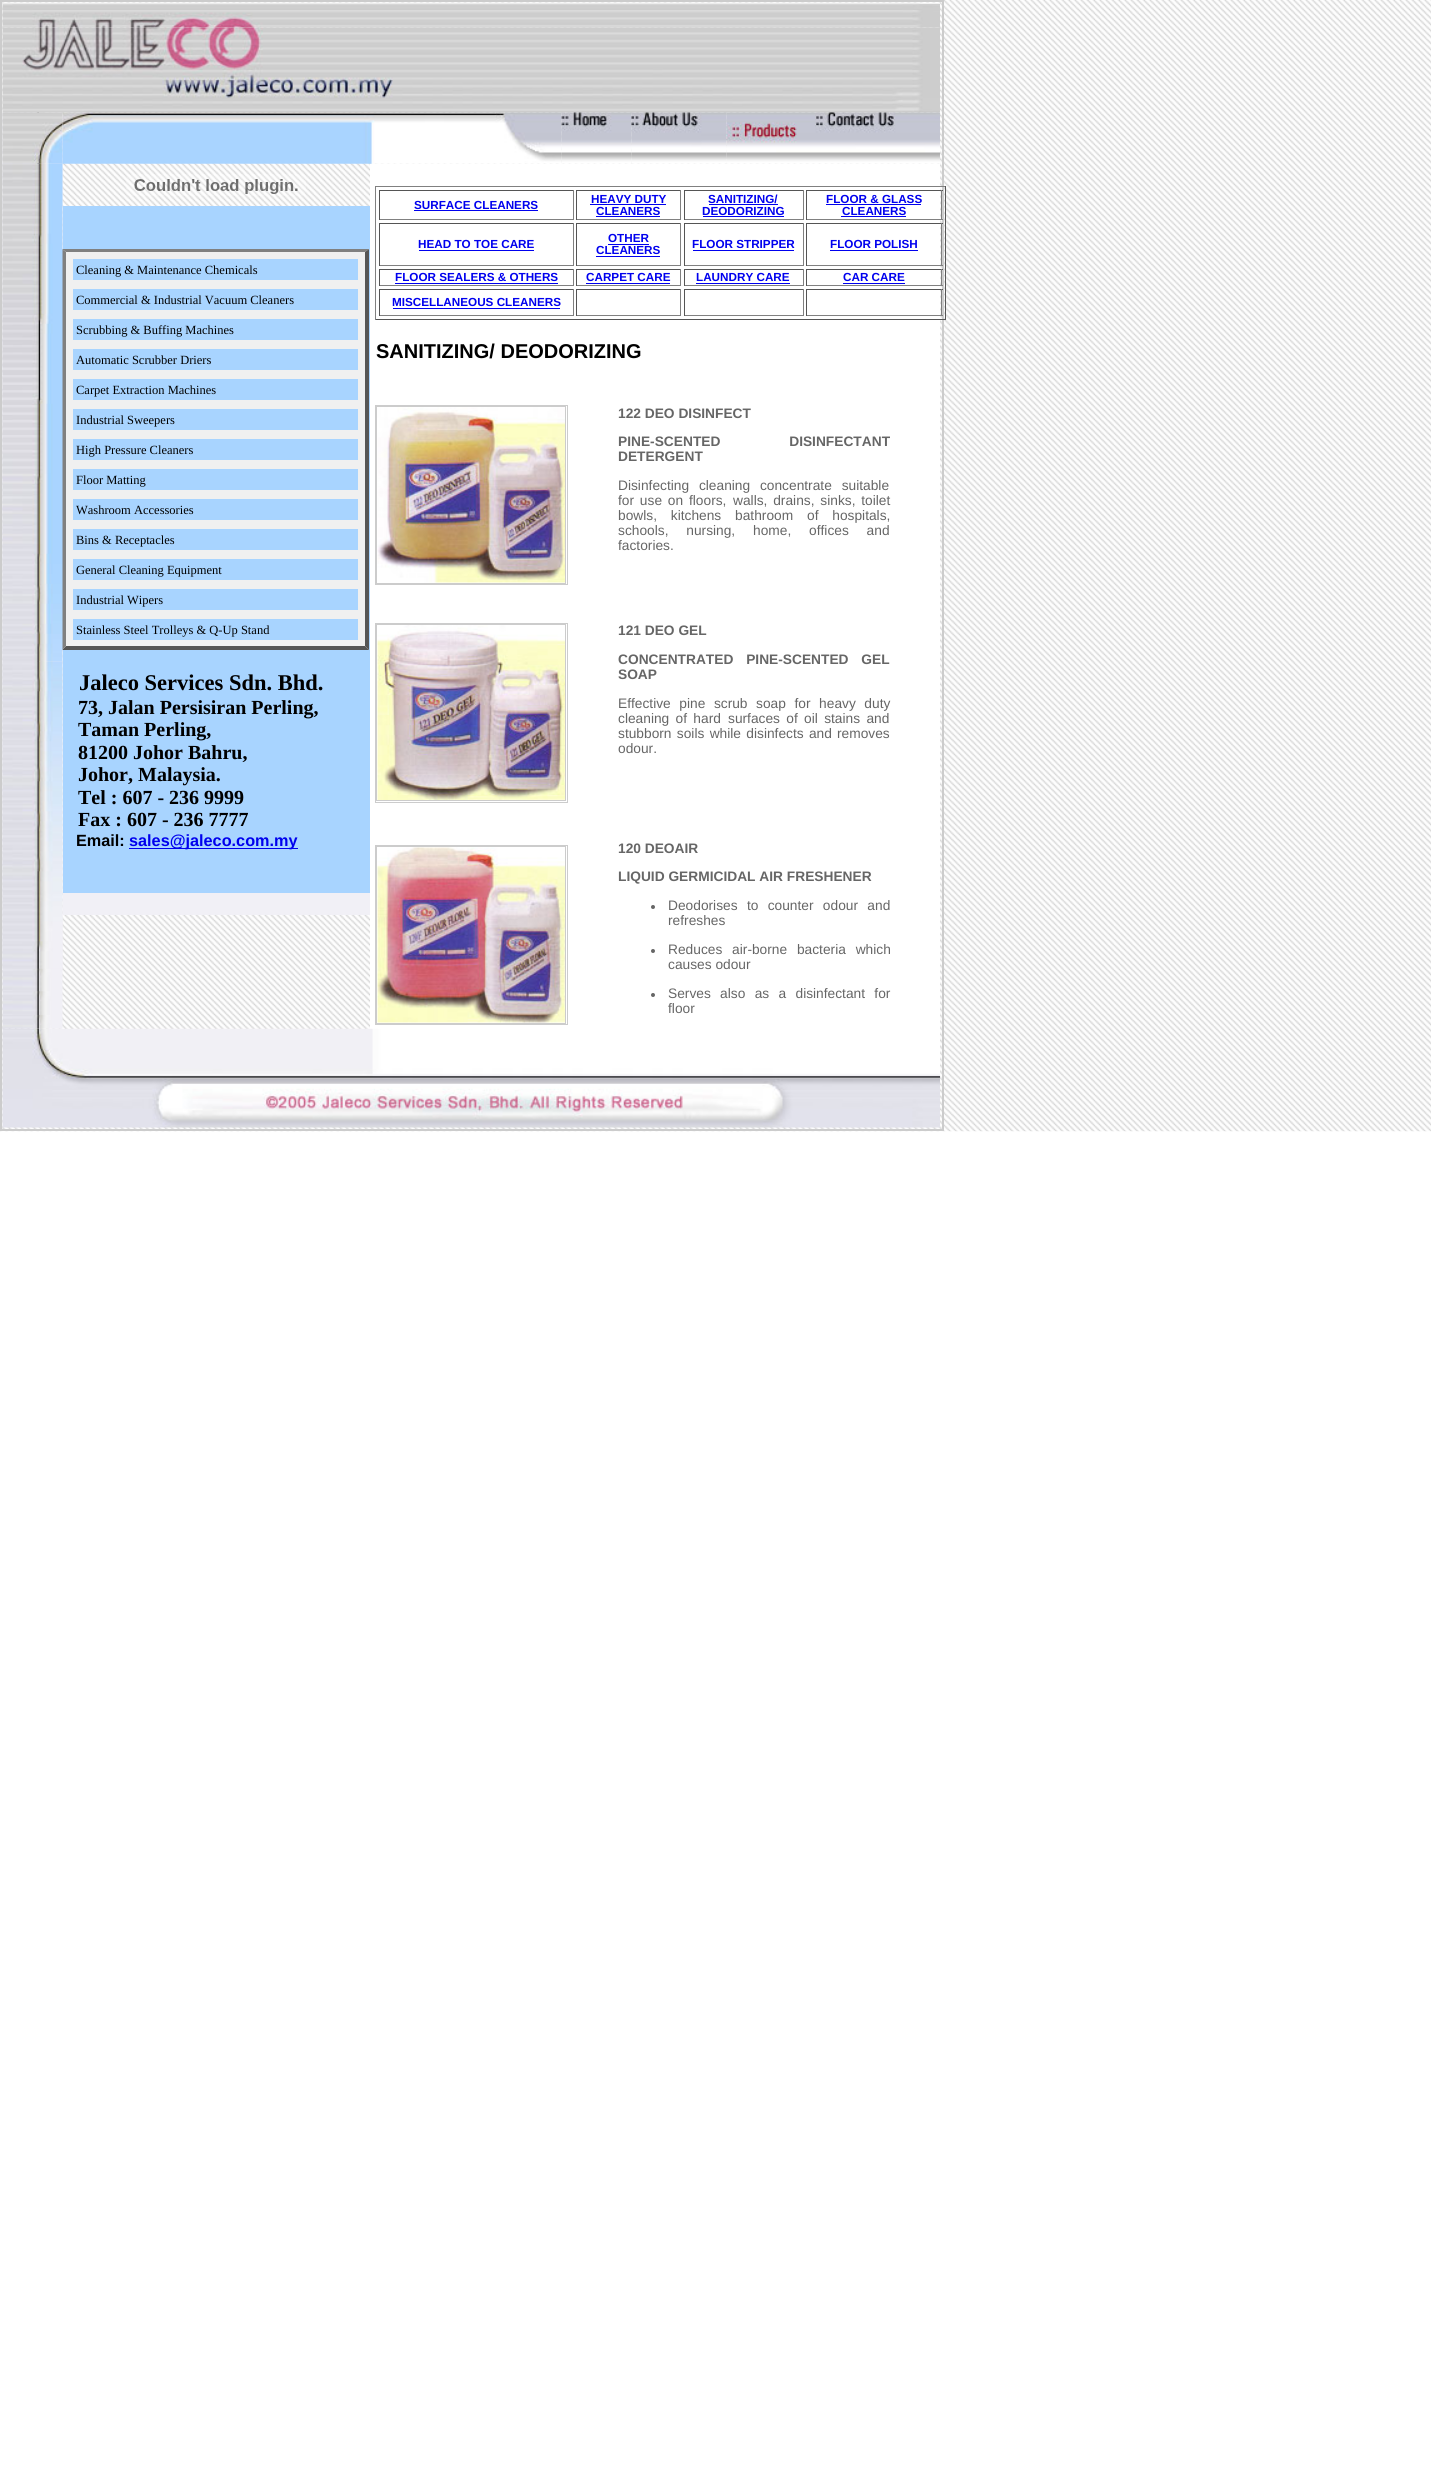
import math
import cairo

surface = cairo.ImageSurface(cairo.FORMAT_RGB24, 1431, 2473)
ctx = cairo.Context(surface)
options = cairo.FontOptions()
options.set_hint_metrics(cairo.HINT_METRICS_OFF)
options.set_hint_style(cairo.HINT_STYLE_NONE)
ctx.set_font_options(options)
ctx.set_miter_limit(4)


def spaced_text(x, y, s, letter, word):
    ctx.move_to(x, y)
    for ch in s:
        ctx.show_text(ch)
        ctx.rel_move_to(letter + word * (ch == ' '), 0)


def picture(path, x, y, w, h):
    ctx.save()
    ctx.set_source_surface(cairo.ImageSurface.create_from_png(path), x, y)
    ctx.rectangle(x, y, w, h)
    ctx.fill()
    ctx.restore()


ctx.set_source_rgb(1, 1, 1)
ctx.paint()
picture("img1.png", 0, 0, 1431, 1132)
ctx.rectangle(0.5, 0.5, 943, 1130)
ctx.set_source_rgb(0.8, 0.8, 0.8)
ctx.set_line_width(1)
ctx.stroke()
ctx.rectangle(1.5, 1.5, 941, 1128)
ctx.stroke()
picture("img2.png", 2, 2, 938, 26)
picture("img4.png", 2, 112, 61, 917)
picture("img3.png", 2, 27, 938, 86)
picture("img5.png", 2, 112, 61, 52)
ctx.set_source_rgb(0.659, 0.831, 1)
ctx.rectangle(63, 206, 307, 687)
ctx.fill()
ctx.set_source_rgb(0.941, 0.941, 0.941)
ctx.rectangle(63, 249, 306, 401)
ctx.fill()
ctx.set_source_rgb(0.502, 0.502, 0.502)
ctx.new_path()
ctx.move_to(62, 249)
ctx.line_to(369, 249)
ctx.line_to(365, 252)
ctx.line_to(66, 252)
ctx.close_path()
ctx.fill()
ctx.set_source_rgb(0.333, 0.333, 0.333)
ctx.new_path()
ctx.move_to(369, 249)
ctx.line_to(369, 650)
ctx.line_to(365, 646)
ctx.line_to(365, 252)
ctx.close_path()
ctx.fill()
ctx.new_path()
ctx.move_to(369, 650)
ctx.line_to(62, 650)
ctx.line_to(66, 646)
ctx.line_to(365, 646)
ctx.close_path()
ctx.fill()
ctx.set_source_rgb(0.502, 0.502, 0.502)
ctx.new_path()
ctx.move_to(62, 650)
ctx.line_to(62, 249)
ctx.line_to(66, 252)
ctx.line_to(66, 646)
ctx.close_path()
ctx.fill()
picture("img6.png", 2, 163, 61, 499)
picture("img7.png", 2, 661, 61, 308)
picture("img8.png", 62, 112, 500, 52)
picture("img9.png", 561, 112, 71, 52)
picture("img10.png", 631, 112, 96, 52)
picture("img11.png", 726, 112, 89, 52)
picture("img12.png", 815, 112, 125, 52)
picture("img13.png", 126, 174, 180, 22)
ctx.set_source_rgb(0.659, 0.831, 1)
ctx.rectangle(73, 259, 285, 21)
ctx.fill()
ctx.select_font_face("Liberation Serif")
ctx.set_font_size(12.5)
ctx.set_source_rgb(0, 0, 0)
ctx.move_to(76, 274)
ctx.show_text("Cleaning & Maintenance Chemicals")
ctx.set_source_rgb(0.659, 0.831, 1)
ctx.rectangle(73, 289, 285, 21)
ctx.fill()
ctx.set_source_rgb(0, 0, 0)
ctx.move_to(76, 304)
ctx.show_text("Commercial & Industrial Vacuum Cleaners")
ctx.set_source_rgb(0.659, 0.831, 1)
ctx.rectangle(73, 319, 285, 21)
ctx.fill()
ctx.set_source_rgb(0, 0, 0)
ctx.move_to(76, 334)
ctx.show_text("Scrubbing & Buffing Machines")
ctx.set_source_rgb(0.659, 0.831, 1)
ctx.rectangle(73, 349, 285, 21)
ctx.fill()
ctx.set_source_rgb(0, 0, 0)
ctx.move_to(76, 364)
ctx.show_text("Automatic Scrubber Driers")
ctx.set_source_rgb(0.659, 0.831, 1)
ctx.rectangle(73, 379, 285, 21)
ctx.fill()
ctx.set_source_rgb(0, 0, 0)
ctx.move_to(76, 394)
ctx.show_text("Carpet Extraction Machines")
ctx.set_source_rgb(0.659, 0.831, 1)
ctx.rectangle(73, 409, 285, 21)
ctx.fill()
ctx.set_source_rgb(0, 0, 0)
ctx.move_to(76, 424)
ctx.show_text("Industrial Sweepers")
ctx.set_source_rgb(0.659, 0.831, 1)
ctx.rectangle(73, 439, 285, 21)
ctx.fill()
ctx.set_source_rgb(0, 0, 0)
ctx.move_to(76, 454)
ctx.show_text("High Pressure Cleaners")
ctx.set_source_rgb(0.659, 0.831, 1)
ctx.rectangle(73, 469, 285, 21)
ctx.fill()
ctx.set_source_rgb(0, 0, 0)
ctx.move_to(76, 484)
ctx.show_text("Floor Matting")
ctx.set_source_rgb(0.659, 0.831, 1)
ctx.rectangle(73, 499, 285, 21)
ctx.fill()
ctx.set_source_rgb(0, 0, 0)
ctx.move_to(76, 514)
ctx.show_text("Washroom Accessories")
ctx.set_source_rgb(0.659, 0.831, 1)
ctx.rectangle(73, 529, 285, 21)
ctx.fill()
ctx.set_source_rgb(0, 0, 0)
ctx.move_to(76, 544)
ctx.show_text("Bins & Receptacles")
ctx.set_source_rgb(0.659, 0.831, 1)
ctx.rectangle(73, 559, 285, 21)
ctx.fill()
ctx.set_source_rgb(0, 0, 0)
ctx.move_to(76, 574)
ctx.show_text("General Cleaning Equipment")
ctx.set_source_rgb(0.659, 0.831, 1)
ctx.rectangle(73, 589, 285, 21)
ctx.fill()
ctx.set_source_rgb(0, 0, 0)
ctx.move_to(76, 604)
ctx.show_text("Industrial Wipers")
ctx.set_source_rgb(0.659, 0.831, 1)
ctx.rectangle(73, 619, 285, 21)
ctx.fill()
ctx.set_source_rgb(0, 0, 0)
ctx.move_to(76, 634)
ctx.show_text("Stainless Steel Trolleys & Q-Up Stand")
ctx.select_font_face("Liberation Serif", cairo.FONT_SLANT_NORMAL, cairo.FONT_WEIGHT_BOLD)
ctx.set_font_size(22.5)
ctx.move_to(79, 690)
ctx.show_text("Jaleco Services Sdn. Bhd.")
ctx.set_font_size(20)
ctx.move_to(78, 714)
ctx.show_text("73, Jalan Persisiran Perling,")
ctx.move_to(78, 736)
ctx.show_text("Taman Perling,")
ctx.move_to(78, 759)
ctx.show_text("81200 Johor Bahru,")
ctx.move_to(78, 781)
ctx.show_text("Johor, Malaysia.")
ctx.move_to(78, 804)
ctx.show_text("Tel : 607 - 236 9999")
ctx.move_to(78, 826)
ctx.show_text("Fax : 607 - 236 7777")
ctx.select_font_face("Liberation Sans", cairo.FONT_SLANT_NORMAL, cairo.FONT_WEIGHT_BOLD)
ctx.set_font_size(16.25)
ctx.move_to(76, 846)
ctx.show_text("Email:")
ctx.set_source_rgb(0, 0, 0.933)
ctx.rectangle(129, 848, 169, 1)
ctx.fill()
ctx.move_to(129, 846)
ctx.show_text("sales@jaleco.com.my")
ctx.set_source_rgb(0.945, 0.941, 0.961)
ctx.rectangle(63, 893, 307, 22)
ctx.fill()
ctx.set_source_rgb(1, 1, 1)
ctx.rectangle(370, 164, 570, 865)
ctx.fill()
ctx.set_source_rgb(0.502, 0.502, 0.502)
ctx.rectangle(375, 186, 571, 1)
ctx.fill()
ctx.set_source_rgb(0.333, 0.333, 0.333)
ctx.rectangle(945, 186, 1, 134)
ctx.fill()
ctx.rectangle(375, 319, 571, 1)
ctx.fill()
ctx.set_source_rgb(0.502, 0.502, 0.502)
ctx.rectangle(375, 186, 1, 134)
ctx.fill()
ctx.set_source_rgb(0.333, 0.333, 0.333)
ctx.rectangle(379, 190, 195, 1)
ctx.fill()
ctx.set_source_rgb(0.502, 0.502, 0.502)
ctx.rectangle(573, 190, 1, 30)
ctx.fill()
ctx.rectangle(379, 219, 195, 1)
ctx.fill()
ctx.set_source_rgb(0.333, 0.333, 0.333)
ctx.rectangle(379, 190, 1, 30)
ctx.fill()
ctx.set_font_size(11.7)
ctx.set_source_rgb(0, 0, 0.933)
ctx.move_to(414, 209)
ctx.show_text("SURFACE CLEANERS")
ctx.rectangle(414, 210, 124, 1)
ctx.fill()
ctx.set_source_rgb(0.333, 0.333, 0.333)
ctx.rectangle(576, 190, 105, 1)
ctx.fill()
ctx.set_source_rgb(0.502, 0.502, 0.502)
ctx.rectangle(680, 190, 1, 30)
ctx.fill()
ctx.rectangle(576, 219, 105, 1)
ctx.fill()
ctx.set_source_rgb(0.333, 0.333, 0.333)
ctx.rectangle(576, 190, 1, 30)
ctx.fill()
ctx.set_source_rgb(0, 0, 0.933)
ctx.move_to(591, 203)
ctx.show_text("HEAVY DUTY")
ctx.rectangle(590, 204, 76, 1)
ctx.fill()
ctx.move_to(596, 215)
ctx.show_text("CLEANERS")
ctx.rectangle(596, 216, 64, 1)
ctx.fill()
ctx.set_source_rgb(0.333, 0.333, 0.333)
ctx.rectangle(684, 190, 120, 1)
ctx.fill()
ctx.set_source_rgb(0.502, 0.502, 0.502)
ctx.rectangle(803, 190, 1, 30)
ctx.fill()
ctx.rectangle(684, 219, 120, 1)
ctx.fill()
ctx.set_source_rgb(0.333, 0.333, 0.333)
ctx.rectangle(684, 190, 1, 30)
ctx.fill()
ctx.set_source_rgb(0, 0, 0.933)
ctx.move_to(708, 203)
ctx.show_text("SANITIZING/")
ctx.rectangle(709, 204, 69, 1)
ctx.fill()
ctx.move_to(702, 215)
ctx.show_text("DEODORIZING")
ctx.rectangle(703, 216, 81, 1)
ctx.fill()
ctx.set_source_rgb(0.333, 0.333, 0.333)
ctx.rectangle(806, 190, 137, 1)
ctx.fill()
ctx.set_source_rgb(0.502, 0.502, 0.502)
ctx.rectangle(941, 190, 1, 30)
ctx.fill()
ctx.rectangle(806, 219, 137, 1)
ctx.fill()
ctx.set_source_rgb(0.333, 0.333, 0.333)
ctx.rectangle(806, 190, 1, 30)
ctx.fill()
ctx.set_source_rgb(0, 0, 0.933)
ctx.move_to(826, 203)
ctx.show_text("FLOOR & GLASS")
ctx.rectangle(826, 204, 95, 1)
ctx.fill()
ctx.move_to(842, 215)
ctx.show_text("CLEANERS")
ctx.rectangle(841, 216, 65, 1)
ctx.fill()
ctx.set_source_rgb(0.333, 0.333, 0.333)
ctx.rectangle(379, 223, 195, 1)
ctx.fill()
ctx.set_source_rgb(0.502, 0.502, 0.502)
ctx.rectangle(573, 223, 1, 43)
ctx.fill()
ctx.rectangle(379, 265, 195, 1)
ctx.fill()
ctx.set_source_rgb(0.333, 0.333, 0.333)
ctx.rectangle(379, 223, 1, 43)
ctx.fill()
ctx.set_source_rgb(0, 0, 0.933)
ctx.move_to(418, 248)
ctx.show_text("HEAD TO TOE CARE")
ctx.rectangle(419, 250, 115, 1)
ctx.fill()
ctx.set_source_rgb(0.333, 0.333, 0.333)
ctx.rectangle(576, 223, 105, 1)
ctx.fill()
ctx.set_source_rgb(0.502, 0.502, 0.502)
ctx.rectangle(680, 223, 1, 43)
ctx.fill()
ctx.rectangle(576, 265, 105, 1)
ctx.fill()
ctx.set_source_rgb(0.333, 0.333, 0.333)
ctx.rectangle(576, 223, 1, 43)
ctx.fill()
ctx.set_source_rgb(0, 0, 0.933)
ctx.move_to(608, 242)
ctx.show_text("OTHER")
ctx.move_to(596, 254)
ctx.show_text("CLEANERS")
ctx.rectangle(608, 244, 41, 1)
ctx.fill()
ctx.rectangle(596, 256, 64, 1)
ctx.fill()
ctx.set_source_rgb(0.333, 0.333, 0.333)
ctx.rectangle(684, 223, 120, 1)
ctx.fill()
ctx.set_source_rgb(0.502, 0.502, 0.502)
ctx.rectangle(803, 223, 1, 43)
ctx.fill()
ctx.rectangle(684, 265, 120, 1)
ctx.fill()
ctx.set_source_rgb(0.333, 0.333, 0.333)
ctx.rectangle(684, 223, 1, 43)
ctx.fill()
ctx.set_source_rgb(0, 0, 0.933)
ctx.move_to(692, 248)
ctx.show_text("FLOOR STRIPPER")
ctx.rectangle(693, 250, 101, 1)
ctx.fill()
ctx.set_source_rgb(0.333, 0.333, 0.333)
ctx.rectangle(806, 223, 137, 1)
ctx.fill()
ctx.set_source_rgb(0.502, 0.502, 0.502)
ctx.rectangle(941, 223, 1, 43)
ctx.fill()
ctx.rectangle(806, 265, 137, 1)
ctx.fill()
ctx.set_source_rgb(0.333, 0.333, 0.333)
ctx.rectangle(806, 223, 1, 43)
ctx.fill()
ctx.set_source_rgb(0, 0, 0.933)
ctx.move_to(830, 248)
ctx.show_text("FLOOR POLISH")
ctx.rectangle(830, 250, 88, 1)
ctx.fill()
ctx.set_source_rgb(0.333, 0.333, 0.333)
ctx.rectangle(379, 269, 195, 1)
ctx.fill()
ctx.set_source_rgb(0.502, 0.502, 0.502)
ctx.rectangle(573, 269, 1, 17)
ctx.fill()
ctx.rectangle(379, 285, 195, 1)
ctx.fill()
ctx.set_source_rgb(0.333, 0.333, 0.333)
ctx.rectangle(379, 269, 1, 17)
ctx.fill()
ctx.set_source_rgb(0, 0, 0.933)
ctx.move_to(395, 281)
ctx.show_text("FLOOR SEALERS & OTHERS")
ctx.rectangle(395, 283, 163, 1)
ctx.fill()
ctx.set_source_rgb(0.333, 0.333, 0.333)
ctx.rectangle(576, 269, 105, 1)
ctx.fill()
ctx.set_source_rgb(0.502, 0.502, 0.502)
ctx.rectangle(680, 269, 1, 17)
ctx.fill()
ctx.rectangle(576, 285, 105, 1)
ctx.fill()
ctx.set_source_rgb(0.333, 0.333, 0.333)
ctx.rectangle(576, 269, 1, 17)
ctx.fill()
ctx.set_source_rgb(0, 0, 0.933)
ctx.move_to(586, 281)
ctx.show_text("CARPET CARE")
ctx.rectangle(586, 283, 84, 1)
ctx.fill()
ctx.set_source_rgb(0.333, 0.333, 0.333)
ctx.rectangle(684, 269, 120, 1)
ctx.fill()
ctx.set_source_rgb(0.502, 0.502, 0.502)
ctx.rectangle(803, 269, 1, 17)
ctx.fill()
ctx.rectangle(684, 285, 120, 1)
ctx.fill()
ctx.set_source_rgb(0.333, 0.333, 0.333)
ctx.rectangle(684, 269, 1, 17)
ctx.fill()
ctx.set_source_rgb(0, 0, 0.933)
ctx.move_to(696, 281)
ctx.show_text("LAUNDRY CARE")
ctx.rectangle(696, 283, 94, 1)
ctx.fill()
ctx.set_source_rgb(0.333, 0.333, 0.333)
ctx.rectangle(806, 269, 137, 1)
ctx.fill()
ctx.set_source_rgb(0.502, 0.502, 0.502)
ctx.rectangle(941, 269, 1, 17)
ctx.fill()
ctx.rectangle(806, 285, 137, 1)
ctx.fill()
ctx.set_source_rgb(0.333, 0.333, 0.333)
ctx.rectangle(806, 269, 1, 17)
ctx.fill()
ctx.set_source_rgb(0, 0, 0.933)
ctx.move_to(843, 281)
ctx.show_text("CAR CARE")
ctx.rectangle(843, 283, 62, 1)
ctx.fill()
ctx.set_source_rgb(0.333, 0.333, 0.333)
ctx.rectangle(379, 289, 195, 1)
ctx.fill()
ctx.set_source_rgb(0.502, 0.502, 0.502)
ctx.rectangle(573, 289, 1, 27)
ctx.fill()
ctx.rectangle(379, 315, 195, 1)
ctx.fill()
ctx.set_source_rgb(0.333, 0.333, 0.333)
ctx.rectangle(379, 289, 1, 27)
ctx.fill()
ctx.set_source_rgb(0, 0, 0.933)
ctx.move_to(392, 306)
ctx.show_text("MISCELLANEOUS CLEANERS")
ctx.rectangle(393, 308, 167, 1)
ctx.fill()
ctx.set_source_rgb(0.333, 0.333, 0.333)
ctx.rectangle(576, 289, 105, 1)
ctx.fill()
ctx.set_source_rgb(0.502, 0.502, 0.502)
ctx.rectangle(680, 289, 1, 27)
ctx.fill()
ctx.rectangle(576, 315, 105, 1)
ctx.fill()
ctx.set_source_rgb(0.333, 0.333, 0.333)
ctx.rectangle(576, 289, 1, 27)
ctx.fill()
ctx.rectangle(684, 289, 120, 1)
ctx.fill()
ctx.set_source_rgb(0.502, 0.502, 0.502)
ctx.rectangle(803, 289, 1, 27)
ctx.fill()
ctx.rectangle(684, 315, 120, 1)
ctx.fill()
ctx.set_source_rgb(0.333, 0.333, 0.333)
ctx.rectangle(684, 289, 1, 27)
ctx.fill()
ctx.rectangle(806, 289, 137, 1)
ctx.fill()
ctx.set_source_rgb(0.502, 0.502, 0.502)
ctx.rectangle(941, 289, 1, 27)
ctx.fill()
ctx.rectangle(806, 315, 137, 1)
ctx.fill()
ctx.set_source_rgb(0.333, 0.333, 0.333)
ctx.rectangle(806, 289, 1, 27)
ctx.fill()
ctx.set_font_size(20)
ctx.set_source_rgb(0, 0, 0)
ctx.move_to(376, 358)
ctx.show_text("SANITIZING/ DEODORIZING")
ctx.rectangle(375.5, 405.5, 192, 179)
ctx.set_source_rgb(0.8, 0.8, 0.8)
ctx.stroke()
ctx.rectangle(376.5, 406.5, 189, 177)
ctx.stroke()
picture("img14.png", 377, 407, 188, 176)
ctx.set_font_size(13.75)
ctx.set_source_rgb(0.4, 0.4, 0.4)
ctx.move_to(618, 418)
ctx.show_text("122 DEO DISINFECT")
spaced_text(618, 446, "PINE-SCENTED DISINFECTANT", 0, 65)
ctx.move_to(618, 461)
ctx.show_text("DETERGENT")
ctx.select_font_face("Liberation Sans")
spaced_text(618, 490, "Disinfecting cleaning concentrate suitable", 0, 6)
spaced_text(618, 505, "for use on floors,", 0, 2)
spaced_text(733, 505, "walls, drains, sinks, toilet", 0, 2)
spaced_text(618, 520, "bowls, kitchens bathroom of hospitals,", 0, 10)
spaced_text(618, 535, "schools, nursing, home, offices and", 0, 14)
ctx.move_to(618, 550)
ctx.show_text("factories.")
ctx.rectangle(375.5, 623.5, 192, 179)
ctx.set_source_rgb(0.8, 0.8, 0.8)
ctx.stroke()
ctx.rectangle(376.5, 624.5, 189, 176)
ctx.stroke()
picture("img15.png", 377, 625, 188, 175)
ctx.select_font_face("Liberation Sans", cairo.FONT_SLANT_NORMAL, cairo.FONT_WEIGHT_BOLD)
ctx.set_source_rgb(0.4, 0.4, 0.4)
ctx.move_to(618, 635)
ctx.show_text("121 DEO GEL")
spaced_text(618, 664, "CONCENTRATED PINE-SCENTED GEL", 0, 9)
ctx.move_to(618, 679)
ctx.show_text("SOAP")
ctx.select_font_face("Liberation Sans")
spaced_text(618, 708, "Effective pine scrub soap for heavy duty", 0, 4.75)
spaced_text(618, 723, "cleaning of hard", 0, 2.5)
spaced_text(728, 723, "surfaces of oil stains and", 0, 2.5)
spaced_text(618, 738, "stubborn soils while disinfects and", 0, 1.5)
ctx.move_to(837, 738)
ctx.show_text("removes")
ctx.move_to(618, 753)
ctx.show_text("odour.")
ctx.rectangle(375.5, 845.5, 192, 179)
ctx.set_source_rgb(0.8, 0.8, 0.8)
ctx.stroke()
ctx.rectangle(376.5, 846.5, 189, 177)
ctx.stroke()
picture("img16.png", 377, 847, 188, 176)
ctx.select_font_face("Liberation Sans", cairo.FONT_SLANT_NORMAL, cairo.FONT_WEIGHT_BOLD)
ctx.set_source_rgb(0.4, 0.4, 0.4)
ctx.move_to(618, 853)
ctx.show_text("120 DEOAIR")
ctx.move_to(618, 881)
ctx.show_text("LIQUID GERMICIDAL AIR FRESHENER")
ctx.new_path()
ctx.arc(653, 907, 2, 0, 2 * math.pi)
ctx.fill()
ctx.select_font_face("Liberation Sans")
spaced_text(668, 910, "Deodorises to counter odour and", 0, 5.5)
ctx.move_to(668, 925)
ctx.show_text("refreshes")
ctx.new_path()
ctx.arc(653, 951, 2, 0, 2 * math.pi)
ctx.fill()
spaced_text(668, 954, "Reduces air-borne bacteria which", 0, 6)
ctx.move_to(668, 969)
ctx.show_text("causes odour")
ctx.new_path()
ctx.arc(653, 995, 2, 0, 2 * math.pi)
ctx.fill()
spaced_text(668, 998, "Serves also as a disinfectant for", 0, 5.5)
ctx.move_to(668, 1013)
ctx.show_text("floor")
picture("img17.png", 2, 1028, 938, 100)
surface.write_to_png("page.png")
